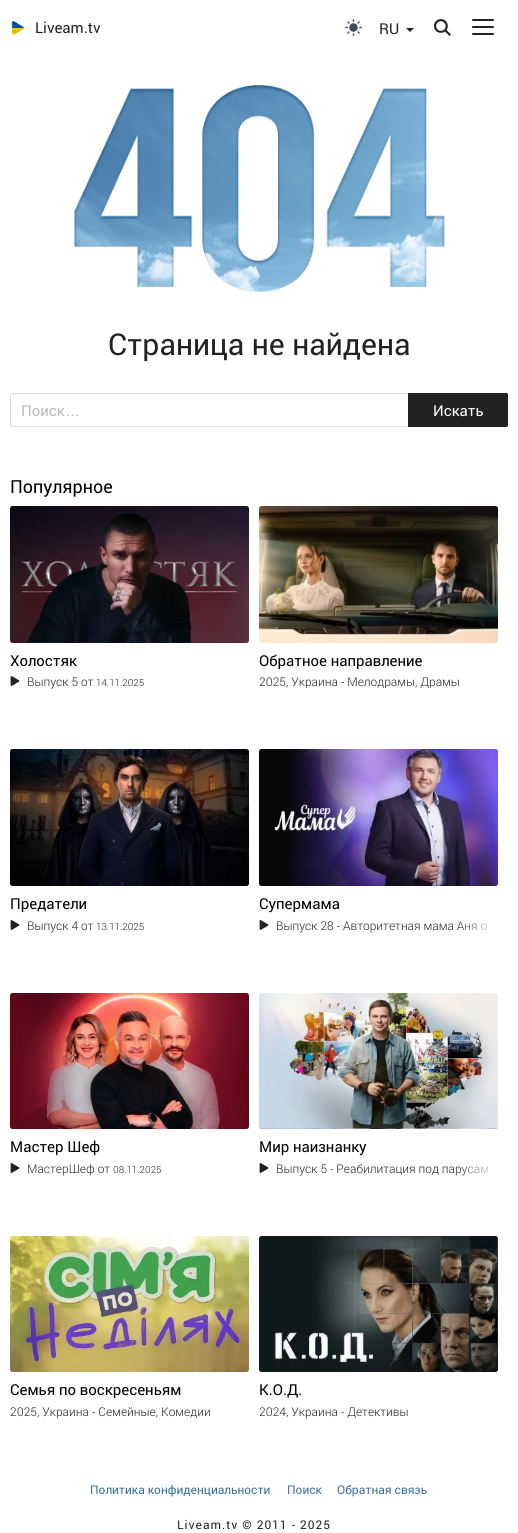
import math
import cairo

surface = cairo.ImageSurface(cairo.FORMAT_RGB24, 518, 1533)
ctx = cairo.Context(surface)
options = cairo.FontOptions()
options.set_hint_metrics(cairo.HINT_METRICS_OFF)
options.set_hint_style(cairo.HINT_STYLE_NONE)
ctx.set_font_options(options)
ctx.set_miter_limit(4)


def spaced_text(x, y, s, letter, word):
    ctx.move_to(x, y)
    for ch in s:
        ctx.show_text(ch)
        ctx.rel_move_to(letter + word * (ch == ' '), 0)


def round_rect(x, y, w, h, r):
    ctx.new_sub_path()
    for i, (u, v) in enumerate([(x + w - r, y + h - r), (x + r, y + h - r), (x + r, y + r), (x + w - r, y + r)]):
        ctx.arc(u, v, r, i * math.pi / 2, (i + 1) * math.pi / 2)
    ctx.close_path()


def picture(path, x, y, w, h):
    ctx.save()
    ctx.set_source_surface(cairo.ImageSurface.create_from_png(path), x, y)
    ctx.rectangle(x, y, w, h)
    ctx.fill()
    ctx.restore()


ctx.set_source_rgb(1, 1, 1)
ctx.paint()
picture("img1.png", 11, 21, 14, 14)
ctx.select_font_face("Roboto")
ctx.set_font_size(15)
ctx.set_source_rgb(0.133, 0.133, 0.133)
ctx.move_to(35, 33)
ctx.show_text("Liveam.tv")
picture("img2.png", 345, 19, 17, 17)
ctx.move_to(379, 34)
ctx.show_text("RU")
ctx.new_path()
ctx.move_to(406, 28)
ctx.line_to(414, 28)
ctx.line_to(410, 32)
ctx.close_path()
ctx.fill()
picture("img3.png", 434, 19, 17, 17)
round_rect(472, 19, 22, 2, 1)
ctx.fill()
round_rect(472, 26, 22, 2, 1)
ctx.fill()
round_rect(472, 33, 22, 2, 1)
ctx.fill()
picture("img4.png", 74, 85, 371, 208)
ctx.set_font_size(30)
ctx.move_to(108, 355)
ctx.show_text("Страница не найдена")
round_rect(10.5, 393.5, 399, 33, 1.5)
ctx.set_source_rgb(0.867, 0.867, 0.867)
ctx.set_line_width(1)
ctx.stroke()
ctx.set_font_size(15)
ctx.set_source_rgb(0.718, 0.733, 0.757)
ctx.move_to(21, 416)
ctx.show_text("Поиск")
ctx.select_font_face("Liberation Sans")
ctx.move_to(65, 416)
ctx.show_text("…")
ctx.set_source_rgb(0.133, 0.133, 0.133)
ctx.new_path()
ctx.move_to(408.5, 393.5)
ctx.line_to(506, 393.5)
ctx.curve_to(507, 393.5, 507.5, 394, 507.5, 395)
ctx.line_to(507.5, 425)
ctx.curve_to(507.5, 426, 507, 426.5, 506, 426.5)
ctx.line_to(408.5, 426.5)
ctx.close_path()
ctx.fill_preserve()
ctx.stroke()
ctx.select_font_face("Roboto")
ctx.set_source_rgb(1, 1, 1)
ctx.move_to(433, 416)
ctx.show_text("Искать")
ctx.set_font_size(18)
ctx.set_source_rgb(0, 0, 0)
ctx.move_to(10, 493)
ctx.show_text("Популярное")
picture("img5.png", 10, 506, 239, 137)
ctx.set_font_size(15)
ctx.move_to(10, 666)
ctx.show_text("Холостяк")
picture("img6.png", 10, 676, 10, 10)
ctx.select_font_face("Roboto Light")
ctx.set_font_size(12)
ctx.set_source_rgb(0.133, 0.133, 0.133)
ctx.move_to(27, 686)
ctx.show_text("Выпуск 5 от")
ctx.set_font_size(9.75)
ctx.move_to(96, 686)
ctx.show_text("14.11.2025")
picture("img7.png", 259, 506, 239, 137)
ctx.select_font_face("Roboto")
ctx.set_font_size(15)
ctx.set_source_rgb(0, 0, 0)
ctx.move_to(259, 666)
ctx.show_text("Обратное направление")
ctx.save()
ctx.rectangle(259, 673, 239, 15)
ctx.clip()
ctx.select_font_face("Roboto Light")
ctx.set_font_size(12)
ctx.set_source_rgb(0.133, 0.133, 0.133)
ctx.move_to(259, 686)
ctx.show_text("2025, Украина - Мелодрамы, Драмы")
ctx.restore()
picture("img8.png", 10, 749, 239, 137)
ctx.move_to(10, 909)
ctx.show_text("Предатели")
picture("img6.png", 10, 920, 10, 10)
ctx.select_font_face("Roboto Light")
ctx.set_font_size(12)
ctx.set_source_rgb(0.133, 0.133, 0.133)
ctx.move_to(27, 930)
ctx.show_text("Выпуск 4 от")
ctx.set_font_size(9.75)
ctx.move_to(96, 930)
ctx.show_text("13.11.2025")
picture("img9.png", 259, 749, 239, 137)
ctx.select_font_face("Roboto")
ctx.set_font_size(15)
ctx.set_source_rgb(0, 0, 0)
ctx.move_to(259, 909)
ctx.show_text("Супермама")
picture("img6.png", 259, 920, 10, 10)
ctx.select_font_face("Roboto Light")
ctx.set_font_size(12)
ctx.set_source_rgb(0.133, 0.133, 0.133)
ctx.move_to(276, 930)
ctx.show_text("Выпуск 28 - Авторитетная мама Аня о")
gradient = cairo.LinearGradient(458, 936, 498, 936)
gradient.add_color_stop_rgba(0, 1, 1, 1, 0)
gradient.add_color_stop_rgba(1, 1, 1, 1, 1)
ctx.set_source(gradient)
ctx.rectangle(459, 921, 28, 10)
ctx.fill()
picture("img10.png", 10, 993, 239, 136)
ctx.select_font_face("Roboto")
ctx.set_font_size(15)
ctx.set_source_rgb(0, 0, 0)
ctx.move_to(10, 1152)
ctx.show_text("Мастер Шеф")
picture("img6.png", 10, 1163, 10, 10)
ctx.select_font_face("Roboto Light")
ctx.set_font_size(12)
ctx.set_source_rgb(0.133, 0.133, 0.133)
ctx.move_to(27, 1173)
ctx.show_text("МастерШеф от")
ctx.set_font_size(9.75)
ctx.move_to(113, 1173)
ctx.show_text("08.11.2025")
picture("img11.png", 259, 993, 239, 136)
ctx.select_font_face("Roboto")
ctx.set_font_size(15)
ctx.set_source_rgb(0, 0, 0)
ctx.move_to(259, 1152)
ctx.show_text("Мир наизнанку")
picture("img6.png", 259, 1163, 10, 10)
ctx.select_font_face("Roboto Light")
ctx.set_font_size(12)
ctx.set_source_rgb(0.133, 0.133, 0.133)
ctx.move_to(276, 1173)
ctx.show_text("Выпуск 5 - Реабилитация под парусам")
gradient = cairo.LinearGradient(458, 1179, 498, 1179)
gradient.add_color_stop_rgba(0, 1, 1, 1, 0)
gradient.add_color_stop_rgba(1, 1, 1, 1, 1)
ctx.set_source(gradient)
ctx.rectangle(459, 1166, 29, 10)
ctx.fill()
picture("img12.png", 10, 1236, 239, 136)
ctx.select_font_face("Roboto")
ctx.set_font_size(15)
ctx.set_source_rgb(0, 0, 0)
ctx.move_to(10, 1395)
ctx.show_text("Семья по воскресеньям")
ctx.select_font_face("Roboto Light")
ctx.set_font_size(12)
ctx.set_source_rgb(0.133, 0.133, 0.133)
ctx.move_to(10, 1416)
ctx.show_text("2025, Украина - Семейные, Комедии")
picture("img13.png", 259, 1236, 239, 136)
ctx.select_font_face("Roboto")
ctx.set_font_size(15)
ctx.set_source_rgb(0, 0, 0)
ctx.move_to(259, 1395)
ctx.show_text("К.О.Д.")
ctx.select_font_face("Roboto Light")
ctx.set_font_size(12)
ctx.set_source_rgb(0.133, 0.133, 0.133)
ctx.move_to(259, 1416)
ctx.show_text("2024, Украина - Детективы")
ctx.select_font_face("Roboto")
ctx.set_source_rgb(0.231, 0.439, 0.62)
ctx.move_to(90, 1494)
ctx.show_text("Политика конфиденциальности")
ctx.move_to(287, 1494)
ctx.show_text("Поиск")
ctx.move_to(337, 1494)
ctx.show_text("Обратная связь")
ctx.set_source_rgb(0.133, 0.133, 0.133)
spaced_text(177, 1529, "Liveam.tv © 2011 - 2025", 1, 0)
surface.write_to_png("page.png")
